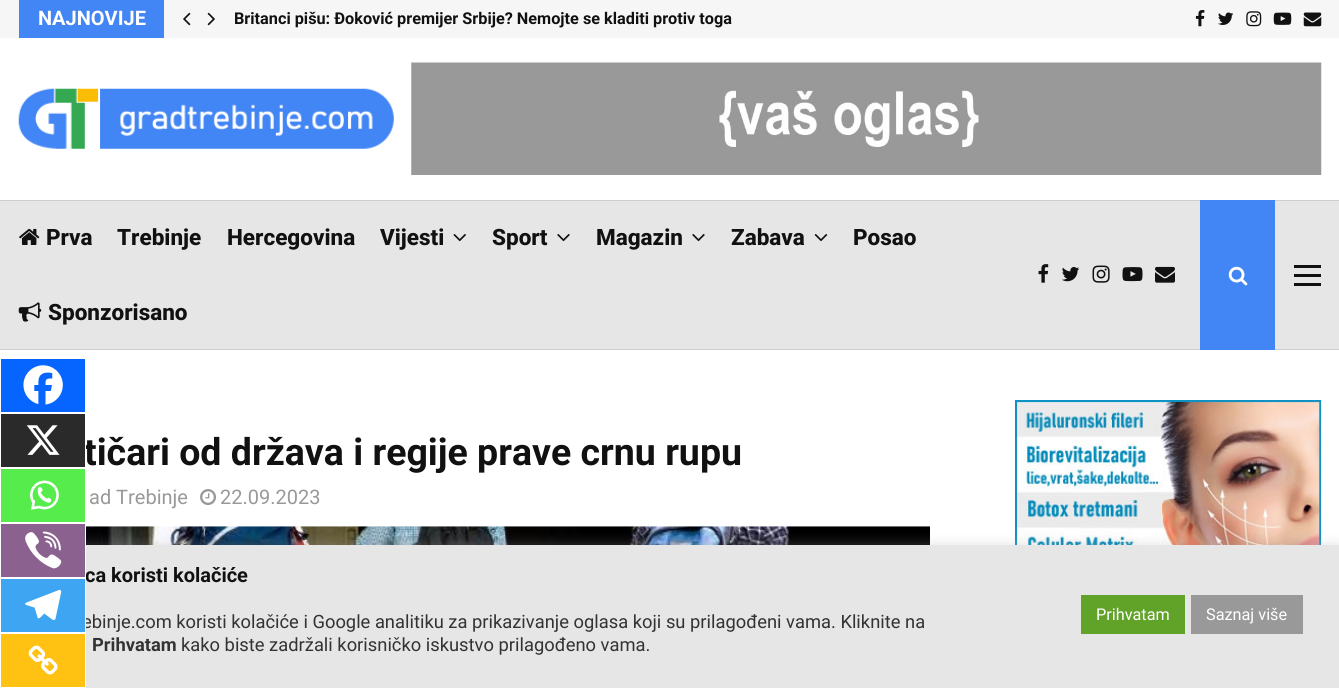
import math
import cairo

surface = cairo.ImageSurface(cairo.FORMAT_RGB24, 1339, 688)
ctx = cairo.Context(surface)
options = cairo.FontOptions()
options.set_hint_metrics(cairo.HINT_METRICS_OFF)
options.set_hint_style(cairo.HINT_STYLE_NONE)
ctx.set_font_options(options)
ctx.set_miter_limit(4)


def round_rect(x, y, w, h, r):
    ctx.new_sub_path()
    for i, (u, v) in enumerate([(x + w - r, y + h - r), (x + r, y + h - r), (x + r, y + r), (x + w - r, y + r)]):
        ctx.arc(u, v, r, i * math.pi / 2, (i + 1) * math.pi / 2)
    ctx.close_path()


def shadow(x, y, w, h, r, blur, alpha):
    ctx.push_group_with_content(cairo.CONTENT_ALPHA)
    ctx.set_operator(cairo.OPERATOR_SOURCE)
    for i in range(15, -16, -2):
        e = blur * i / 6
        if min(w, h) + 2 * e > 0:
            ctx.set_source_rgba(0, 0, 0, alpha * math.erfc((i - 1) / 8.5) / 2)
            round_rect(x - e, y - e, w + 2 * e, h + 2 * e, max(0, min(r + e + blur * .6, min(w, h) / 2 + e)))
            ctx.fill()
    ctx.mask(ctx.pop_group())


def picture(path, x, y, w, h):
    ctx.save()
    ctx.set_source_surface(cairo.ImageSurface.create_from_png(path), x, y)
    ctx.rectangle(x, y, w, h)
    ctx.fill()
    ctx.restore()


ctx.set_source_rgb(1, 1, 1)
ctx.paint()
ctx.set_source_rgb(0.961, 0.961, 0.961)
ctx.rectangle(0, 0, 1339, 38)
ctx.fill()
ctx.set_source_rgb(0.259, 0.522, 0.957)
ctx.rectangle(19, 0, 145, 38)
ctx.fill()
ctx.select_font_face("Roboto", cairo.FONT_SLANT_NORMAL, cairo.FONT_WEIGHT_BOLD)
ctx.set_font_size(20)
ctx.set_source_rgb(1, 1, 1)
ctx.move_to(38, 25)
ctx.show_text("NAJNOVIJE")
picture("img1.png", 183, 12, 8, 14)
picture("img2.png", 207, 12, 8, 14)
ctx.set_font_size(16.25)
ctx.set_source_rgb(0.067, 0.067, 0.067)
ctx.move_to(234, 24)
ctx.show_text("Britanci pišu: Đoković premijer Srbije? Nemojte se kladiti protiv toga")
picture("img3.png", 1195, 10, 10, 17)
picture("img4.png", 1218, 12, 16, 13)
picture("img5.png", 1246, 11, 16, 16)
picture("img6.png", 1273, 12, 19, 13)
picture("img7.png", 1303, 12, 19, 15)
picture("img8.png", 18, 88, 376, 61)
picture("img9.png", 411, 62, 911, 113)
ctx.set_source_rgb(0.902, 0.902, 0.902)
ctx.rectangle(0, 201, 1339, 148)
ctx.fill()
ctx.set_source_rgb(0.808, 0.808, 0.808)
ctx.rectangle(0, 349, 1339, 1)
ctx.fill()
ctx.rectangle(0, 200, 1339, 1)
ctx.fill()
picture("img10.png", 19, 228, 21, 17)
ctx.select_font_face("Roboto ExtraBold")
ctx.set_font_size(22.5)
ctx.set_source_rgb(0.067, 0.067, 0.067)
ctx.move_to(46, 245)
ctx.show_text("Prva")
ctx.move_to(117, 245)
ctx.show_text("Trebinje")
ctx.move_to(227, 245)
ctx.show_text("Hercegovina")
ctx.move_to(380, 245)
ctx.show_text("Vijesti")
picture("img11.png", 453, 234, 13, 8)
ctx.move_to(492, 245)
ctx.show_text("Sport")
picture("img12.png", 557, 234, 13, 8)
ctx.move_to(596, 245)
ctx.show_text("Magazin")
picture("img12.png", 692, 234, 13, 8)
ctx.move_to(731, 245)
ctx.show_text("Zabava")
picture("img13.png", 814, 234, 14, 8)
ctx.move_to(853, 245)
ctx.show_text("Posao")
picture("img14.png", 18, 302, 24, 20)
ctx.move_to(48, 320)
ctx.show_text("Sponzorisano")
picture("img15.png", 1038, 264, 11, 19)
picture("img16.png", 1062, 267, 18, 15)
picture("img17.png", 1092, 265, 18, 18)
picture("img18.png", 1122, 267, 21, 15)
picture("img19.png", 1155, 266, 20, 17)
ctx.set_source_rgb(0.259, 0.522, 0.957)
ctx.rectangle(1200, 200, 75, 150)
ctx.fill()
picture("img20.png", 1228, 266, 20, 20)
ctx.set_source_rgb(0.067, 0.067, 0.067)
ctx.rectangle(1294, 265, 27, 3)
ctx.fill()
ctx.rectangle(1294, 283, 27, 3)
ctx.fill()
ctx.rectangle(1294, 274, 27, 3)
ctx.fill()
ctx.set_source_rgb(0.027, 0.396, 0.996)
ctx.rectangle(1, 359, 84, 53)
ctx.fill()
picture("img21.png", 23, 365, 40, 40)
ctx.select_font_face("Roboto", cairo.FONT_SLANT_NORMAL, cairo.FONT_WEIGHT_BOLD)
ctx.set_font_size(37.5)
ctx.set_source_rgb(0.067, 0.067, 0.067)
ctx.move_to(84, 465)
ctx.show_text("tičari od država i regije prave crnu rupu")
ctx.set_source_rgb(0.165, 0.165, 0.165)
ctx.rectangle(0.5, 413.5, 85, 54)
ctx.fill_preserve()
ctx.set_source_rgb(1, 1, 1)
ctx.set_line_width(1)
ctx.stroke()
picture("img22.png", 26, 425, 34, 30)
ctx.set_source_rgb(0.333, 0.922, 0.298)
ctx.rectangle(1, 469, 84, 53)
ctx.fill()
picture("img23.png", 30, 480, 29, 30)
picture("img28.png", 86, 526, 844, 19)
picture("img29.png", 1015, 400, 307, 145)
ctx.set_source_rgb(0.675, 0.671, 0.671)
shadow(0, 544, 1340, 144, 0, 6, 0.3)
ctx.set_source_rgb(0.902, 0.902, 0.902)
ctx.rectangle(86, 545, 1253, 143)
ctx.fill()
ctx.set_font_size(20)
ctx.set_source_rgb(0.067, 0.067, 0.067)
ctx.move_to(85, 582)
ctx.show_text("ca koristi kolačiće")
ctx.set_source_rgb(0.545, 0.384, 0.561)
ctx.rectangle(0.5, 523.5, 85, 54)
ctx.fill_preserve()
ctx.set_source_rgb(1, 1, 1)
ctx.stroke()
picture("img24.png", 25, 531, 37, 38)
ctx.select_font_face("Roboto")
ctx.set_font_size(18.35)
ctx.set_source_rgb(0.2, 0.2, 0.2)
ctx.move_to(82, 628)
ctx.show_text("ebinje.com koristi kolačiće i Google analitiku za prikazivanje oglasa koji su prilagođeni vama. Kliknite na")
ctx.set_source_rgb(0.239, 0.647, 0.945)
ctx.rectangle(0.5, 578.5, 85, 54)
ctx.fill_preserve()
ctx.set_source_rgb(1, 1, 1)
ctx.stroke()
picture("img25.png", 25, 589, 37, 32)
ctx.set_source_rgb(1, 0.757, 0.071)
ctx.rectangle(0.5, 633.5, 85, 54)
ctx.fill_preserve()
ctx.set_source_rgb(1, 1, 1)
ctx.stroke()
picture("img26.png", 28, 645, 30, 30)
ctx.set_font_size(20)
ctx.set_source_rgb(0.6, 0.6, 0.6)
ctx.move_to(89, 504)
ctx.show_text("ad Trebinje")
picture("img27.png", 200, 489, 16, 16)
ctx.move_to(220, 504)
ctx.show_text("22.09.2023")
ctx.select_font_face("Roboto", cairo.FONT_SLANT_NORMAL, cairo.FONT_WEIGHT_BOLD)
ctx.set_font_size(18.35)
ctx.set_source_rgb(0.2, 0.2, 0.2)
ctx.move_to(92, 651)
ctx.show_text("Prihvatam")
ctx.select_font_face("Roboto")
ctx.move_to(181, 651)
ctx.show_text("kako biste zadržali korisničko iskustvo prilagođeno vama.")
ctx.set_source_rgb(0.38, 0.635, 0.161)
ctx.rectangle(1081, 595, 104, 39)
ctx.fill()
ctx.set_font_size(16.25)
ctx.set_source_rgb(1, 1, 1)
ctx.move_to(1096, 620)
ctx.show_text("Prihvatam")
ctx.set_source_rgb(0.6, 0.6, 0.6)
ctx.rectangle(1191, 595, 112, 39)
ctx.fill()
ctx.set_source_rgb(1, 1, 1)
ctx.move_to(1206, 620)
ctx.show_text("Saznaj više")
surface.write_to_png("page.png")
